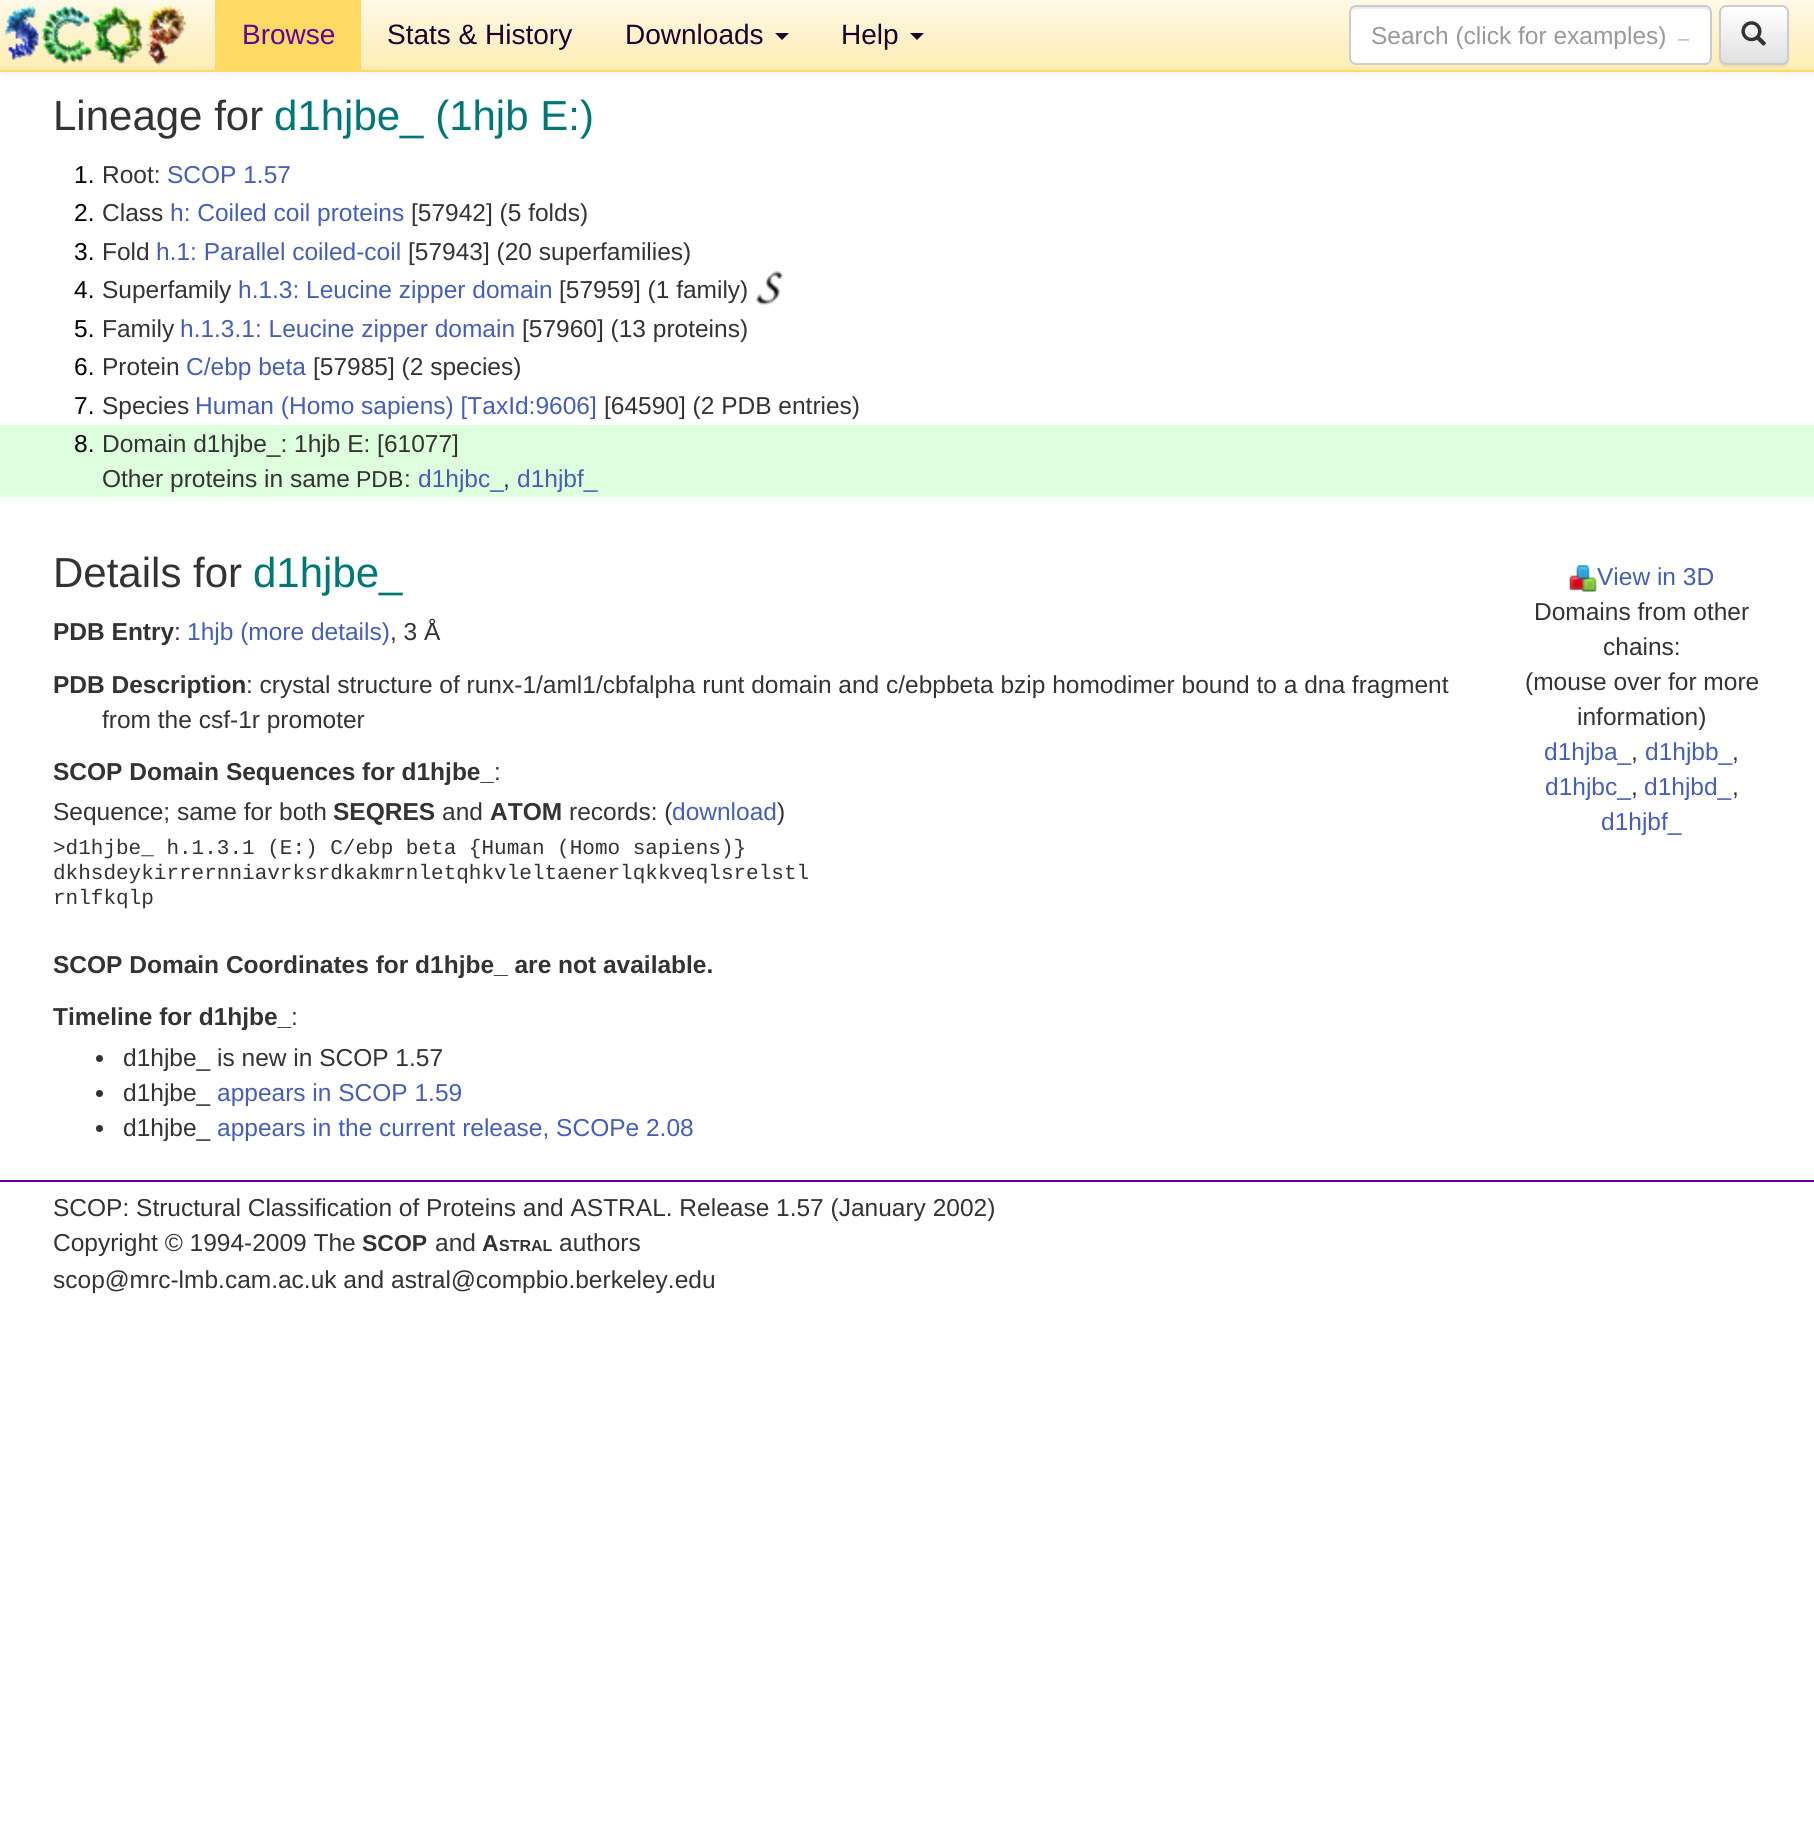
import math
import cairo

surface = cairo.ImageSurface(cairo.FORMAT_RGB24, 1814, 1833)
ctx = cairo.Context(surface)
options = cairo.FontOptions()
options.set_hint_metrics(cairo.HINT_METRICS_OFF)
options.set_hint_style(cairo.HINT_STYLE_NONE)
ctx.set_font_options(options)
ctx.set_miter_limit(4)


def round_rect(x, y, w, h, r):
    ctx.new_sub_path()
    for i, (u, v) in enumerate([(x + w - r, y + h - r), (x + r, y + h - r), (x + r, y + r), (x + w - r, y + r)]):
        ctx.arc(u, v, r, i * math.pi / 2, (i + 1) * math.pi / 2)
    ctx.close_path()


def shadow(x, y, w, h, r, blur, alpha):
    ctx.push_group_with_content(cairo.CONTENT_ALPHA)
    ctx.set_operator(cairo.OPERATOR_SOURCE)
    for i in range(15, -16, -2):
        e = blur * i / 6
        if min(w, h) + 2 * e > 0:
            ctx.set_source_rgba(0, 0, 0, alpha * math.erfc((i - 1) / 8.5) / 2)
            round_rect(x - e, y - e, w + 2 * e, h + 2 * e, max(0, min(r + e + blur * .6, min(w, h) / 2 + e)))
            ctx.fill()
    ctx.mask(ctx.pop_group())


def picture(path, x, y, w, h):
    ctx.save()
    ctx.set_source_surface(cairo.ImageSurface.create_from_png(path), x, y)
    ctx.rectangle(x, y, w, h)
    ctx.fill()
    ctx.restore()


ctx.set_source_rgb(1, 1, 1)
ctx.paint()
ctx.set_source_rgb(0, 0, 0)
shadow(0, 2, 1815, 72, 0, 4.5, 0.07)
gradient = cairo.LinearGradient(907, 0, 907, 70)
gradient.add_color_stop_rgba(0, 1, 0.976, 0.902, 1)
gradient.add_color_stop_rgba(1, 1, 0.929, 0.702, 1)
ctx.set_source(gradient)
ctx.rectangle(0, 2, 1814, 68)
ctx.fill()
ctx.set_source_rgb(1, 0.98, 0.914)
ctx.rectangle(0, 0, 1814, 2)
ctx.fill()
ctx.set_source_rgb(1, 0.855, 0.396)
ctx.rectangle(0, 70, 1814, 2)
ctx.fill()
picture("img1.png", 4, 4, 182, 62)
ctx.rectangle(215, 0, 146, 70)
ctx.fill()
ctx.select_font_face("Liberation Sans")
ctx.set_font_size(28)
ctx.set_source_rgb(0.4, 0, 0.6)
ctx.move_to(242, 44)
ctx.show_text("Browse")
ctx.set_source_rgb(0.114, 0, 0.169)
ctx.move_to(387, 44)
ctx.show_text("Stats & History")
ctx.move_to(625, 44)
ctx.show_text("Downloads")
ctx.new_path()
ctx.move_to(775, 33)
ctx.line_to(789, 33)
ctx.line_to(782, 40)
ctx.close_path()
ctx.fill()
ctx.move_to(841, 44)
ctx.show_text("Help")
ctx.new_path()
ctx.move_to(910, 33)
ctx.line_to(924, 33)
ctx.line_to(917, 40)
ctx.close_path()
ctx.fill()
ctx.set_source_rgb(1, 1, 1)
round_rect(1349, 5, 363, 60, 7)
ctx.fill()
ctx.set_source_rgb(0.925, 0.925, 0.925)
ctx.new_path()
ctx.move_to(1356, 9)
ctx.line_to(1704, 9)
ctx.curve_to(1707, 9, 1710, 11, 1710, 14)
ctx.curve_to(1710, 11, 1709, 7, 1705, 7)
ctx.line_to(1356, 7)
ctx.curve_to(1352, 7, 1351, 11, 1351, 14)
ctx.curve_to(1351, 11, 1353, 9, 1356, 9)
ctx.close_path()
ctx.fill()
round_rect(1350, 6, 361, 58, 6)
ctx.set_source_rgb(0.8, 0.8, 0.8)
ctx.stroke()
ctx.save()
ctx.rectangle(1372, 21, 317, 28)
ctx.clip()
ctx.set_font_size(24.5)
ctx.set_source_rgb(0.6, 0.6, 0.6)
ctx.move_to(1371, 44)
ctx.show_text("Search (click for examples) →")
ctx.restore()
ctx.set_source_rgb(0, 0, 0)
shadow(1719, 7, 70, 60, 7, 1, 0.07)
ctx.save()
round_rect(1719, 5, 70, 60, 7)
ctx.clip()
gradient = cairo.LinearGradient(1754, 7, 1754, 63)
gradient.add_color_stop_rgba(0, 1, 1, 1, 1)
gradient.add_color_stop_rgba(1, 0.878, 0.878, 0.878, 1)
ctx.set_source(gradient)
ctx.rectangle(1719, 7, 70, 56)
ctx.fill()
ctx.restore()
round_rect(1720, 6, 68, 58, 6)
ctx.set_source_rgb(0.8, 0.8, 0.8)
ctx.stroke()
picture("img2.png", 1741, 21, 25, 25)
ctx.set_font_size(42)
ctx.set_source_rgb(0.2, 0.2, 0.2)
ctx.move_to(53, 130)
ctx.show_text("Lineage for")
ctx.set_source_rgb(0, 0.467, 0.467)
ctx.move_to(274, 130)
ctx.show_text("d1hjbe_ (1hjb E:)")
ctx.set_font_size(24.5)
ctx.set_source_rgb(0, 0, 0)
ctx.move_to(74, 183)
ctx.show_text("1.")
ctx.set_source_rgb(0.2, 0.2, 0.2)
ctx.move_to(102, 183)
ctx.show_text("Root:")
ctx.set_source_rgb(0.275, 0.369, 0.706)
ctx.move_to(167, 183)
ctx.show_text("SCOP 1.57")
ctx.set_source_rgb(0, 0, 0)
ctx.move_to(74, 221)
ctx.show_text("2.")
ctx.set_source_rgb(0.2, 0.2, 0.2)
ctx.move_to(102, 221)
ctx.show_text("Class")
ctx.set_source_rgb(0.275, 0.369, 0.706)
ctx.move_to(170, 221)
ctx.show_text("h: Coiled coil proteins")
ctx.set_source_rgb(0.2, 0.2, 0.2)
ctx.move_to(411, 221)
ctx.show_text("[57942] (5 folds)")
ctx.set_source_rgb(0, 0, 0)
ctx.move_to(74, 260)
ctx.show_text("3.")
ctx.set_source_rgb(0.2, 0.2, 0.2)
ctx.move_to(102, 260)
ctx.show_text("Fold")
ctx.set_source_rgb(0.275, 0.369, 0.706)
ctx.move_to(156, 260)
ctx.show_text("h.1: Parallel coiled-coil")
ctx.set_source_rgb(0.2, 0.2, 0.2)
ctx.move_to(408, 260)
ctx.show_text("[57943] (20 superfamilies)")
ctx.set_source_rgb(0, 0, 0)
ctx.move_to(74, 298)
ctx.show_text("4.")
ctx.set_source_rgb(0.2, 0.2, 0.2)
ctx.move_to(102, 298)
ctx.show_text("Superfamily")
ctx.set_source_rgb(0.275, 0.369, 0.706)
ctx.move_to(238, 298)
ctx.show_text("h.1.3: Leucine zipper domain")
ctx.set_source_rgb(0.2, 0.2, 0.2)
ctx.move_to(559, 298)
ctx.show_text("[57959] (1 family)")
picture("img3.png", 756, 271, 27, 34)
ctx.set_source_rgb(0, 0, 0)
ctx.move_to(74, 337)
ctx.show_text("5.")
ctx.set_source_rgb(0.2, 0.2, 0.2)
ctx.move_to(102, 337)
ctx.show_text("Family")
ctx.set_source_rgb(0.275, 0.369, 0.706)
ctx.move_to(180, 337)
ctx.show_text("h.1.3.1: Leucine zipper domain")
ctx.set_source_rgb(0.2, 0.2, 0.2)
ctx.move_to(522, 337)
ctx.show_text("[57960] (13 proteins)")
ctx.set_source_rgb(0, 0, 0)
ctx.move_to(74, 375)
ctx.show_text("6.")
ctx.set_source_rgb(0.2, 0.2, 0.2)
ctx.move_to(102, 375)
ctx.show_text("Protein")
ctx.set_source_rgb(0.275, 0.369, 0.706)
ctx.move_to(186, 375)
ctx.show_text("C/ebp beta")
ctx.set_source_rgb(0.2, 0.2, 0.2)
ctx.move_to(313, 375)
ctx.show_text("[57985] (2 species)")
ctx.set_source_rgb(0, 0, 0)
ctx.move_to(74, 414)
ctx.show_text("7.")
ctx.set_source_rgb(0.2, 0.2, 0.2)
ctx.move_to(102, 414)
ctx.show_text("Species")
ctx.set_source_rgb(0.275, 0.369, 0.706)
ctx.move_to(195, 414)
ctx.show_text("Human (Homo sapiens) [TaxId:9606]")
ctx.set_source_rgb(0.2, 0.2, 0.2)
ctx.move_to(604, 414)
ctx.show_text("[64590] (2 PDB entries)")
ctx.set_source_rgb(0.867, 1, 0.867)
ctx.rectangle(0, 425, 1814, 72)
ctx.fill()
ctx.set_source_rgb(0, 0, 0)
ctx.move_to(74, 452)
ctx.show_text("8.")
ctx.set_source_rgb(0.2, 0.2, 0.2)
ctx.move_to(102, 452)
ctx.show_text("Domain d1hjbe_: 1hjb E: [61077]")
ctx.move_to(102, 487)
ctx.show_text("Other proteins in same")
ctx.set_font_size(23)
ctx.move_to(356, 487)
ctx.show_text("PDB")
ctx.set_font_size(24.5)
ctx.move_to(404, 487)
ctx.show_text(":")
ctx.set_source_rgb(0.275, 0.369, 0.706)
ctx.move_to(418, 487)
ctx.show_text("d1hjbc_")
ctx.set_source_rgb(0.2, 0.2, 0.2)
ctx.move_to(503, 487)
ctx.show_text(",")
ctx.set_source_rgb(0.275, 0.369, 0.706)
ctx.move_to(517, 487)
ctx.show_text("d1hjbf_")
ctx.set_font_size(42)
ctx.set_source_rgb(0.2, 0.2, 0.2)
ctx.move_to(53, 587)
ctx.show_text("Details for")
ctx.set_source_rgb(0, 0.467, 0.467)
ctx.move_to(253, 587)
ctx.show_text("d1hjbe_")
ctx.select_font_face("Liberation Sans", cairo.FONT_SLANT_NORMAL, cairo.FONT_WEIGHT_BOLD)
ctx.set_font_size(24.5)
ctx.set_source_rgb(0.2, 0.2, 0.2)
ctx.move_to(53, 640)
ctx.show_text("PDB Entry")
ctx.select_font_face("Liberation Sans")
ctx.move_to(174, 640)
ctx.show_text(":")
ctx.set_source_rgb(0.275, 0.369, 0.706)
ctx.move_to(187, 640)
ctx.show_text("1hjb (more details)")
ctx.set_source_rgb(0.2, 0.2, 0.2)
ctx.move_to(390, 640)
ctx.show_text(", 3 Å")
ctx.select_font_face("Liberation Sans", cairo.FONT_SLANT_NORMAL, cairo.FONT_WEIGHT_BOLD)
ctx.move_to(53, 693)
ctx.show_text("PDB Description")
ctx.select_font_face("Liberation Sans")
ctx.move_to(246, 693)
ctx.show_text(": crystal structure of runx-1/aml1/cbfalpha runt domain and c/ebpbeta bzip homodimer bound to a dna fragment")
ctx.move_to(102, 728)
ctx.show_text("from the csf-1r promoter")
ctx.select_font_face("Liberation Sans", cairo.FONT_SLANT_NORMAL, cairo.FONT_WEIGHT_BOLD)
ctx.move_to(53, 780)
ctx.show_text("SCOP Domain Sequences for d1hjbe_")
ctx.select_font_face("Liberation Sans")
ctx.move_to(494, 780)
ctx.show_text(":")
ctx.move_to(53, 820)
ctx.show_text("Sequence; same for both")
ctx.select_font_face("Liberation Sans", cairo.FONT_SLANT_NORMAL, cairo.FONT_WEIGHT_BOLD)
ctx.move_to(333, 820)
ctx.show_text("SEQRES")
ctx.select_font_face("Liberation Sans")
ctx.move_to(442, 820)
ctx.show_text("and")
ctx.select_font_face("Liberation Sans", cairo.FONT_SLANT_NORMAL, cairo.FONT_WEIGHT_BOLD)
ctx.move_to(490, 820)
ctx.show_text("ATOM")
ctx.select_font_face("Liberation Sans")
ctx.move_to(569, 820)
ctx.show_text("records: (")
ctx.set_source_rgb(0.275, 0.369, 0.706)
ctx.move_to(672, 820)
ctx.show_text("download")
ctx.set_source_rgb(0.2, 0.2, 0.2)
ctx.move_to(777, 820)
ctx.show_text(")")
ctx.select_font_face("Liberation Mono")
ctx.set_font_size(21)
ctx.move_to(53, 854)
ctx.show_text(">d1hjbe_ h.1.3.1 (E:) C/ebp beta {Human (Homo sapiens)}")
ctx.move_to(53, 879)
ctx.show_text("dkhsdeykirrernniavrksrdkakmrnletqhkvleltaenerlqkkveqlsrelstl")
ctx.move_to(53, 904)
ctx.show_text("rnlfkqlp")
ctx.select_font_face("Liberation Sans", cairo.FONT_SLANT_NORMAL, cairo.FONT_WEIGHT_BOLD)
ctx.set_font_size(24.5)
ctx.move_to(53, 973)
ctx.show_text("SCOP Domain Coordinates for d1hjbe_ are not available.")
ctx.move_to(53, 1025)
ctx.show_text("Timeline for d1hjbe_")
ctx.select_font_face("Liberation Sans")
ctx.move_to(291, 1025)
ctx.show_text(":")
ctx.new_path()
ctx.arc(99.5, 1058.5, 3.5, 0, 2 * math.pi)
ctx.fill()
ctx.move_to(123, 1066)
ctx.show_text("d1hjbe_ is new in SCOP 1.57")
ctx.new_path()
ctx.arc(99.5, 1093.5, 3.5, 0, 2 * math.pi)
ctx.fill()
ctx.move_to(123, 1101)
ctx.show_text("d1hjbe_")
ctx.set_source_rgb(0.275, 0.369, 0.706)
ctx.move_to(217, 1101)
ctx.show_text("appears in SCOP 1.59")
ctx.set_source_rgb(0.2, 0.2, 0.2)
ctx.new_path()
ctx.arc(99.5, 1128.5, 3.5, 0, 2 * math.pi)
ctx.fill()
ctx.move_to(123, 1136)
ctx.show_text("d1hjbe_")
ctx.set_source_rgb(0.275, 0.369, 0.706)
ctx.move_to(217, 1136)
ctx.show_text("appears in the current release, SCOPe 2.08")
picture("img4.png", 1569, 565, 28, 27)
ctx.move_to(1597, 585)
ctx.show_text("View in 3D")
ctx.set_source_rgb(0.2, 0.2, 0.2)
ctx.move_to(1534, 620)
ctx.show_text("Domains from other")
ctx.move_to(1603, 655)
ctx.show_text("chains:")
ctx.move_to(1525, 690)
ctx.show_text("(mouse over for more")
ctx.move_to(1577, 725)
ctx.show_text("information)")
ctx.set_source_rgb(0.275, 0.369, 0.706)
ctx.move_to(1544, 760)
ctx.show_text("d1hjba_")
ctx.set_source_rgb(0.2, 0.2, 0.2)
ctx.move_to(1631, 760)
ctx.show_text(",")
ctx.set_source_rgb(0.275, 0.369, 0.706)
ctx.move_to(1645, 760)
ctx.show_text("d1hjbb_")
ctx.set_source_rgb(0.2, 0.2, 0.2)
ctx.move_to(1732, 760)
ctx.show_text(",")
ctx.set_source_rgb(0.275, 0.369, 0.706)
ctx.move_to(1545, 795)
ctx.show_text("d1hjbc_")
ctx.set_source_rgb(0.2, 0.2, 0.2)
ctx.move_to(1631, 795)
ctx.show_text(",")
ctx.set_source_rgb(0.275, 0.369, 0.706)
ctx.move_to(1644, 795)
ctx.show_text("d1hjbd_")
ctx.set_source_rgb(0.2, 0.2, 0.2)
ctx.move_to(1732, 795)
ctx.show_text(",")
ctx.set_source_rgb(0.275, 0.369, 0.706)
ctx.move_to(1601, 830)
ctx.show_text("d1hjbf_")
ctx.set_source_rgb(0.4, 0, 0.6)
ctx.rectangle(0, 1180, 1814, 2)
ctx.fill()
ctx.set_source_rgb(0.2, 0.2, 0.2)
ctx.move_to(53, 1216)
ctx.show_text("SCOP: Structural Classification of Proteins and ASTRAL. Release 1.57 (January 2002)")
ctx.move_to(53, 1251)
ctx.show_text("Copyright © 1994-2009 The")
ctx.select_font_face("Liberation Sans", cairo.FONT_SLANT_NORMAL, cairo.FONT_WEIGHT_BOLD)
ctx.set_font_size(23)
ctx.move_to(362, 1251)
ctx.show_text("SCOP")
ctx.select_font_face("Liberation Sans")
ctx.set_font_size(24.5)
ctx.move_to(435, 1251)
ctx.show_text("and")
ctx.select_font_face("Liberation Sans", cairo.FONT_SLANT_NORMAL, cairo.FONT_WEIGHT_BOLD)
ctx.set_font_size(23)
ctx.move_to(482, 1251)
ctx.show_text("A")
ctx.set_font_size(16)
ctx.move_to(499, 1251)
ctx.show_text("STRAL")
ctx.select_font_face("Liberation Sans")
ctx.set_font_size(24.5)
ctx.move_to(559, 1251)
ctx.show_text("authors")
ctx.move_to(53, 1288)
ctx.show_text("scop@mrc-lmb.cam.ac.uk and astral@compbio.berkeley.edu")
surface.write_to_png("page.png")
